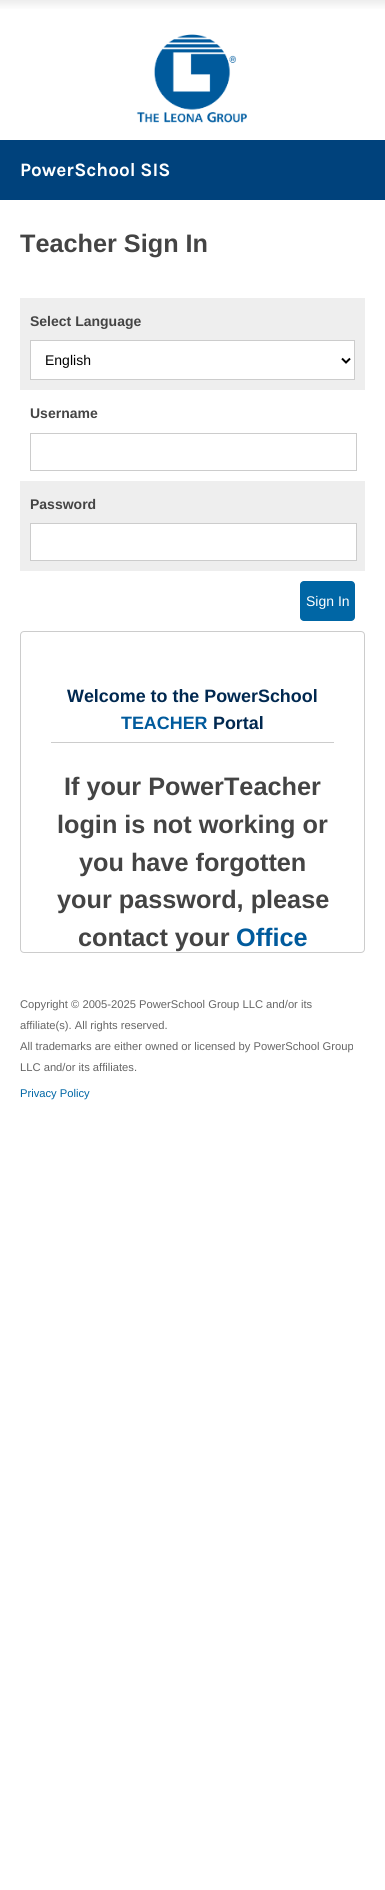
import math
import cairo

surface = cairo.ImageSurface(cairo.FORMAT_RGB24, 385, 1890)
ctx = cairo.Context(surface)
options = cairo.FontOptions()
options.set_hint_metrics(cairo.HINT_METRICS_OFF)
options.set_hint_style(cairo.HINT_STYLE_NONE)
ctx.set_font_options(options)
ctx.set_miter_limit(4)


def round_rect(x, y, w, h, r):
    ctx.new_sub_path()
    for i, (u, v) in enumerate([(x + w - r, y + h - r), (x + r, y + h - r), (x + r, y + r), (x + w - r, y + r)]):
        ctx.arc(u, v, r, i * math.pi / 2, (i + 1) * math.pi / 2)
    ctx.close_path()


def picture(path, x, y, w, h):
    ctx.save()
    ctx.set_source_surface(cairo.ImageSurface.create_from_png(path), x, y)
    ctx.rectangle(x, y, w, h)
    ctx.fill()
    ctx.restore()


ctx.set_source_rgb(1, 1, 1)
ctx.paint()
gradient = cairo.LinearGradient(0, 0, 0, 10)
gradient.add_color_stop_rgba(0, 0.929, 0.929, 0.929, 1)
gradient.add_color_stop_rgba(1, 1, 1, 1, 1)
ctx.set_source(gradient)
ctx.rectangle(0, 0, 385, 9)
ctx.fill()
picture("img1.png", 136, 34, 111, 89)
ctx.set_source_rgb(0, 0.259, 0.486)
ctx.rectangle(0, 140, 385, 60)
ctx.fill()
ctx.select_font_face("Karla", cairo.FONT_SLANT_NORMAL, cairo.FONT_WEIGHT_BOLD)
ctx.set_font_size(19)
ctx.set_source_rgb(1, 1, 1)
ctx.move_to(20, 176)
ctx.show_text("PowerSchool SIS")
ctx.select_font_face("Liberation Sans", cairo.FONT_SLANT_NORMAL, cairo.FONT_WEIGHT_BOLD)
ctx.set_font_size(25.25)
ctx.set_source_rgb(0.267, 0.267, 0.267)
ctx.move_to(20, 252)
ctx.show_text("Teacher Sign In")
ctx.set_source_rgb(0.933, 0.933, 0.933)
ctx.rectangle(20, 298, 345, 92)
ctx.fill()
ctx.set_font_size(14)
ctx.set_source_rgb(0.267, 0.267, 0.267)
ctx.move_to(30, 326)
ctx.show_text("Select Language")
ctx.set_source_rgb(1, 1, 1)
ctx.rectangle(30.5, 340.5, 324, 39)
ctx.fill_preserve()
ctx.set_source_rgb(0.8, 0.8, 0.8)
ctx.set_line_width(1)
ctx.stroke()
ctx.new_path()
ctx.move_to(342, 358.5)
ctx.line_to(346, 362.5)
ctx.line_to(350, 358.5)
ctx.set_source_rgb(0, 0, 0)
ctx.set_line_width(2)
ctx.stroke()
ctx.select_font_face("Liberation Sans")
ctx.move_to(45, 365)
ctx.show_text("English")
ctx.select_font_face("Liberation Sans", cairo.FONT_SLANT_NORMAL, cairo.FONT_WEIGHT_BOLD)
ctx.set_source_rgb(0.267, 0.267, 0.267)
ctx.move_to(30, 418)
ctx.show_text("Username")
ctx.rectangle(30.5, 433.5, 326, 37)
ctx.set_source_rgb(0.8, 0.8, 0.8)
ctx.set_line_width(1)
ctx.stroke()
ctx.set_source_rgb(0.933, 0.933, 0.933)
ctx.rectangle(20, 481, 345, 90)
ctx.fill()
ctx.set_source_rgb(0.267, 0.267, 0.267)
ctx.move_to(30, 509)
ctx.show_text("Password")
ctx.set_source_rgb(1, 1, 1)
ctx.rectangle(30.5, 523.5, 326, 37)
ctx.fill_preserve()
ctx.set_source_rgb(0.8, 0.8, 0.8)
ctx.stroke()
ctx.set_source_rgb(0, 0.4, 0.647)
round_rect(300, 581, 55, 40, 4)
ctx.fill()
ctx.select_font_face("Liberation Sans")
ctx.set_source_rgb(1, 1, 1)
ctx.move_to(306, 606)
ctx.show_text("Sign In")
round_rect(20.5, 631.5, 344, 321, 3.5)
ctx.set_source_rgb(0.8, 0.8, 0.8)
ctx.stroke()
ctx.rectangle(51, 742, 283, 1)
ctx.fill()
ctx.select_font_face("Liberation Sans", cairo.FONT_SLANT_NORMAL, cairo.FONT_WEIGHT_BOLD)
ctx.set_font_size(17.9)
ctx.set_source_rgb(0, 0.157, 0.314)
ctx.move_to(67, 702)
ctx.show_text("Welcome to the PowerSchool")
ctx.set_source_rgb(0, 0.353, 0.612)
ctx.move_to(121, 729)
ctx.show_text("TEACHER")
ctx.set_source_rgb(0, 0.157, 0.314)
ctx.move_to(213, 729)
ctx.show_text("Portal")
ctx.set_font_size(25.25)
ctx.set_source_rgb(0.267, 0.267, 0.267)
ctx.move_to(64, 795)
ctx.show_text("If your PowerTeacher")
ctx.move_to(57, 833)
ctx.show_text("login is not working or")
ctx.move_to(79, 871)
ctx.show_text("you have forgotten")
ctx.move_to(57, 908)
ctx.show_text("your password, please")
ctx.move_to(78, 946)
ctx.show_text("contact your")
ctx.set_source_rgb(0, 0.353, 0.612)
ctx.move_to(236, 946)
ctx.show_text("Office")
ctx.select_font_face("Liberation Sans")
ctx.set_font_size(11.2)
ctx.set_source_rgb(0.4, 0.4, 0.4)
ctx.move_to(20, 1008)
ctx.show_text("Copyright © 2005-2025 PowerSchool Group LLC and/or its")
ctx.move_to(20, 1029)
ctx.show_text("affiliate(s). All rights reserved.")
ctx.move_to(20, 1050)
ctx.show_text("All trademarks are either owned or licensed by PowerSchool Group")
ctx.move_to(20, 1071)
ctx.show_text("LLC and/or its affiliates.")
ctx.set_source_rgb(0, 0.4, 0.647)
ctx.move_to(20, 1097)
ctx.show_text("Privacy Policy")
surface.write_to_png("page.png")
